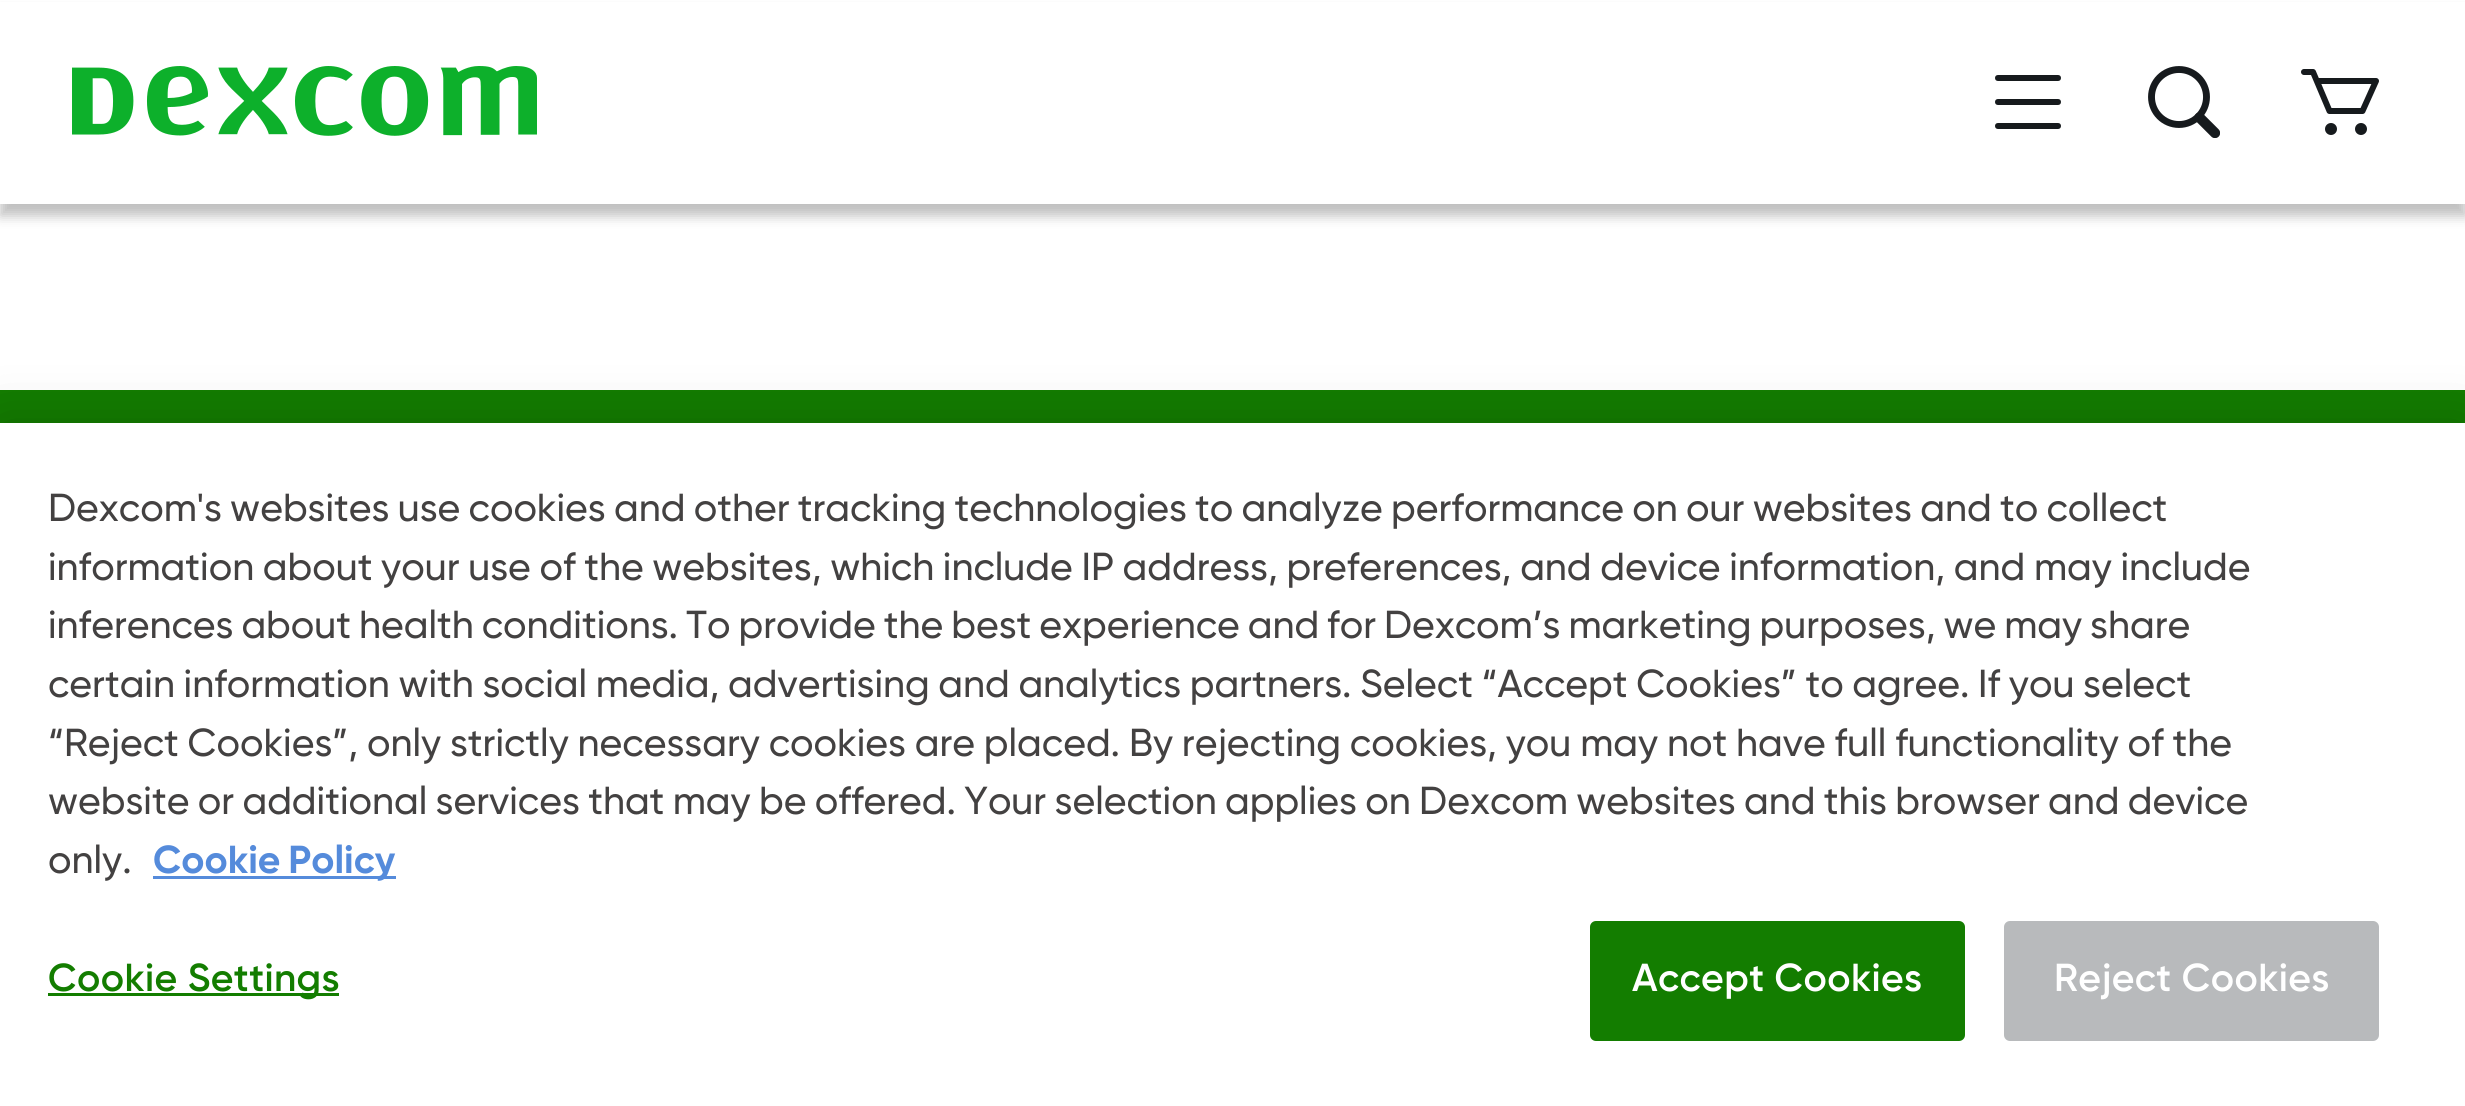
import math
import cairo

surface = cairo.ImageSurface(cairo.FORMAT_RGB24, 2465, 1106)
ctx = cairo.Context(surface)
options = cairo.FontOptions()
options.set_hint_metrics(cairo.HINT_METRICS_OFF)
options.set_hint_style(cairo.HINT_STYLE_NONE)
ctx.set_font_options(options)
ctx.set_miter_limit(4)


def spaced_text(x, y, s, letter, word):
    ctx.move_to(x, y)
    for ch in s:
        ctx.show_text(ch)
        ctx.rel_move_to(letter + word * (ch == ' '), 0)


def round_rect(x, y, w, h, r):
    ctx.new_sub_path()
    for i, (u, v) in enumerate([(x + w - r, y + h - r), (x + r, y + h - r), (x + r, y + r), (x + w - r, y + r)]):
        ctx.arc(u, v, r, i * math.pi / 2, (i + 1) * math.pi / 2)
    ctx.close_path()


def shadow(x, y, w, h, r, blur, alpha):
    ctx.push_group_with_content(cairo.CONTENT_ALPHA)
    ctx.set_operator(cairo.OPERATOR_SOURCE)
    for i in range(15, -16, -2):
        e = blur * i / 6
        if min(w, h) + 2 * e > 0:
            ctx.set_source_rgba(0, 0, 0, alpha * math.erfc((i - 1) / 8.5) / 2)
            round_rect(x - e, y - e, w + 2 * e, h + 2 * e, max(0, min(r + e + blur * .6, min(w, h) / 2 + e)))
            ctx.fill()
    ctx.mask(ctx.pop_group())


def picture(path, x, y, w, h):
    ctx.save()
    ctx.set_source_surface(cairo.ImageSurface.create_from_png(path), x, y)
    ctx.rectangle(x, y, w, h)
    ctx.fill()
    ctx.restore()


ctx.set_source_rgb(1, 1, 1)
ctx.paint()
ctx.set_source_rgb(0, 0, 0)
shadow(0, 12, 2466, 204, 0, 6, 0.25)
ctx.set_source_rgb(1, 1, 1)
ctx.rectangle(0, 2, 2465, 202)
ctx.fill()
picture("img1.png", 72, 66, 465, 70)
picture("img2.png", 1995, 75, 66, 54)
ctx.arc(2179, 97, 27.5, 0, 2 * math.pi)
ctx.set_source_rgb(0.086, 0.102, 0.114)
ctx.set_line_width(6.9)
ctx.stroke()
ctx.save()
ctx.rectangle(2148, 66, 72, 72)
ctx.clip()
ctx.new_path()
ctx.move_to(2199.5, 117.5)
ctx.line_to(2215, 133)
ctx.set_line_width(10.3)
ctx.set_line_cap(cairo.LINE_CAP_ROUND)
ctx.stroke()
ctx.restore()
ctx.new_path()
ctx.move_to(2304, 72)
ctx.line_to(2313, 72)
ctx.line_to(2329.5, 111)
ctx.line_to(2362.5, 111)
ctx.line_to(2376, 81)
ctx.line_to(2317.5, 81)
ctx.set_line_width(6)
ctx.set_line_cap(cairo.LINE_CAP_ROUND)
ctx.set_line_join(cairo.LINE_JOIN_ROUND)
ctx.stroke()
ctx.arc(2331, 129, 6, 0, 2 * math.pi)
ctx.fill()
ctx.arc(2361, 129, 6, 0, 2 * math.pi)
ctx.fill()
ctx.set_source_rgb(0.075, 0.49, 0)
ctx.rectangle(0, 390, 2465, 33)
ctx.fill()
ctx.set_source_rgb(0, 0, 0)
shadow(0, 423, 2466, 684, 0, 27, 0.2)
ctx.set_source_rgb(1, 1, 1)
ctx.rectangle(0, 423, 2465, 683)
ctx.fill()
ctx.select_font_face("Gilroy Medium")
ctx.set_font_size(39.02)
ctx.set_source_rgb(0.263, 0.255, 0.255)
spaced_text(48, 521, "Dexcom's websites use cookies and other tracking technologies to analyze performance on our websites and to collect", 0, -1.5)
spaced_text(48, 580, "information about your use of the websites, which include IP address, preferences, and device information, and may include", 0, -1.1)
spaced_text(48, 638, "inferences about health conditions. To provide the best experience and for Dexcom’s marketing purposes, we may share", 0, -1.8)
spaced_text(48, 697, "certain information with social media, advertising and analytics partners. Select “Accept Cookies” to agree. If you select", 0, -1.1)
spaced_text(48, 756, "“Reject Cookies”, only strictly necessary cookies are placed. By rejecting cookies, you may not have full functionality of the", 0, -0.9)
spaced_text(48, 814, "website or additional services that may be offered. Your selection applies on Dexcom websites and this browser and device", 0, -1.4)
ctx.move_to(48, 873)
ctx.show_text("only.")
ctx.set_source_rgb(0.333, 0.545, 0.859)
ctx.rectangle(153, 876, 243, 3)
ctx.fill()
ctx.select_font_face("Gilroy", cairo.FONT_SLANT_NORMAL, cairo.FONT_WEIGHT_BOLD)
spaced_text(153, 873, "Cookie Policy", 0, -2)
ctx.set_source_rgb(0.075, 0.49, 0)
ctx.rectangle(48, 993, 291, 3)
ctx.fill()
ctx.select_font_face("Gilroy SemiBold")
spaced_text(48, 991, "Cookie Settings", 0.4, 0)
round_rect(1590, 921, 375, 120, 6)
ctx.fill()
ctx.set_source_rgb(1, 1, 1)
spaced_text(1632, 991, "Accept Cookies", 0.4, 0)
ctx.set_source_rgb(0.722, 0.729, 0.737)
round_rect(2004, 921, 375, 120, 6)
ctx.fill()
ctx.set_source_rgb(1, 1, 1)
spaced_text(2054, 991, "Reject Cookies", 0.4, 0)
surface.write_to_png("page.png")
